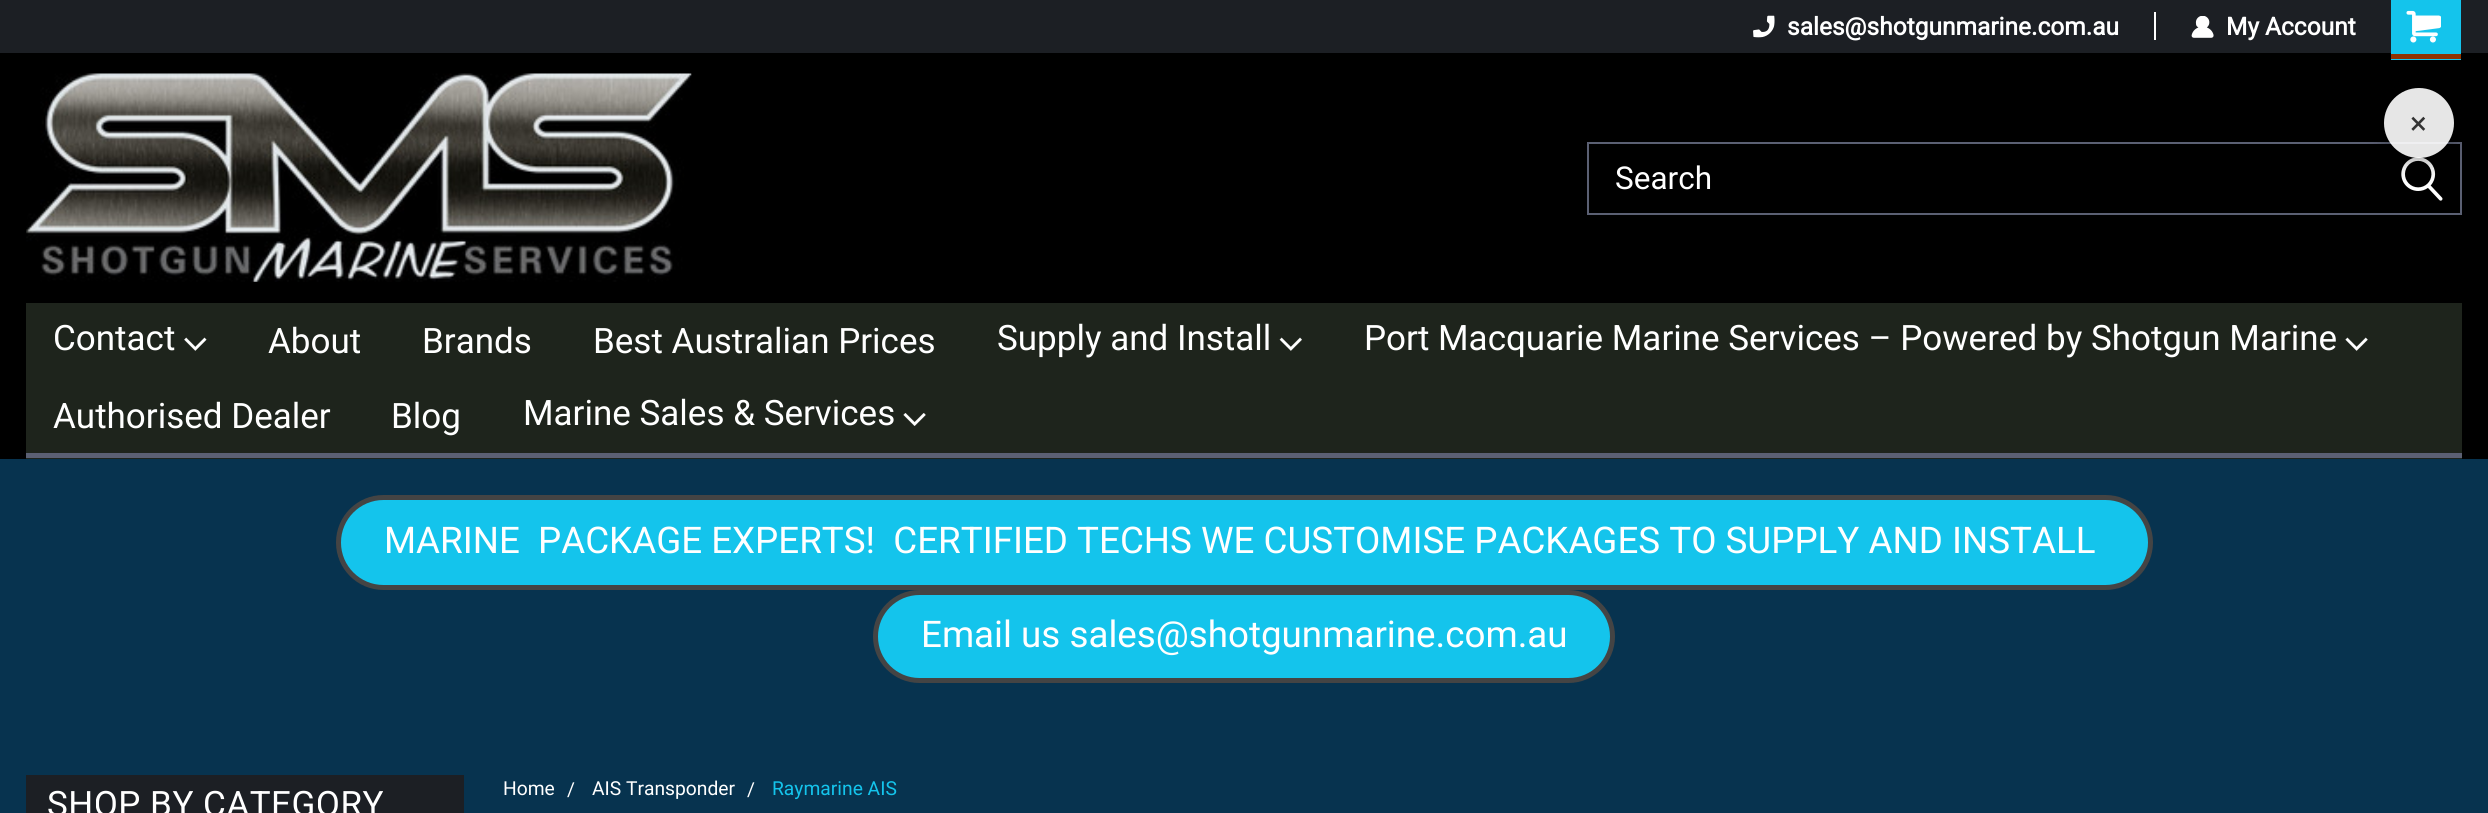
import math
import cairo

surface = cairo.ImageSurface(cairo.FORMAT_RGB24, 2488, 813)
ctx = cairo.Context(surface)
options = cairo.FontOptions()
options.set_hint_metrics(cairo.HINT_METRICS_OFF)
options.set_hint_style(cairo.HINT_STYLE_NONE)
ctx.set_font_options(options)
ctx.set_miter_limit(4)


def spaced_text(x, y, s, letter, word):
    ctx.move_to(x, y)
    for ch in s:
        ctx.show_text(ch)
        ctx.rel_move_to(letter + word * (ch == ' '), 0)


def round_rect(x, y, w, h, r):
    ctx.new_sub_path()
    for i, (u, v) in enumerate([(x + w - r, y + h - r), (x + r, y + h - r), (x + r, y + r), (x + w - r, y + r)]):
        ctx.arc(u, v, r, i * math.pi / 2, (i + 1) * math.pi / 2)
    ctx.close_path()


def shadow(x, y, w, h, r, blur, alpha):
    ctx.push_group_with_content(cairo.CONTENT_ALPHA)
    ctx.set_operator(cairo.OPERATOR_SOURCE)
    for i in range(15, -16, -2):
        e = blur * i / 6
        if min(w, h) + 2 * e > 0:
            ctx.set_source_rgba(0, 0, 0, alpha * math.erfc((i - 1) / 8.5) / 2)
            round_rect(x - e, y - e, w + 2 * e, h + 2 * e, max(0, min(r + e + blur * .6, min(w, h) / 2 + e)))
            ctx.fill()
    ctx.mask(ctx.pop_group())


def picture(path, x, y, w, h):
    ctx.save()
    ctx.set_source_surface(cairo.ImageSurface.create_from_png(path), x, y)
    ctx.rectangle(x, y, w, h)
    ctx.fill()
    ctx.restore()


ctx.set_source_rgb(0.031, 0.2, 0.31)
ctx.paint()
ctx.set_source_rgb(0, 0, 0)
ctx.rectangle(0, 53, 2488, 406)
ctx.fill()
ctx.set_source_rgb(0.11, 0.122, 0.141)
ctx.rectangle(0, 0, 2488, 53)
ctx.fill()
ctx.set_source_rgb(1, 1, 1)
ctx.rectangle(2154, 12, 2, 28)
ctx.fill()
picture("img1.png", 1753, 15, 22, 23)
ctx.select_font_face("Roboto", cairo.FONT_SLANT_NORMAL, cairo.FONT_WEIGHT_BOLD)
ctx.set_font_size(24.5)
ctx.move_to(1787, 35)
ctx.show_text("sales@shotgunmarine.com.au")
picture("img2.png", 2191, 16, 23, 22)
ctx.move_to(2226, 35)
ctx.show_text("My Account")
ctx.set_source_rgb(0.082, 0.769, 0.922)
ctx.rectangle(2391, 0, 70, 60)
ctx.fill()
ctx.set_source_rgb(0.561, 0.196, 0)
ctx.rectangle(2391, 54, 70, 5)
ctx.fill()
picture("img3.png", 2406, 10, 35, 33)
picture("img4.png", 26, 73, 666, 209)
ctx.rectangle(1588, 143, 873, 71)
ctx.set_source_rgb(0.357, 0.376, 0.451)
ctx.stroke()
ctx.select_font_face("Roboto")
ctx.set_font_size(31.5)
ctx.set_source_rgb(1, 1, 1)
ctx.move_to(1615, 189)
ctx.show_text("Search")
picture("img5.png", 2401, 157, 42, 44)
ctx.set_source_rgb(0.118, 0.141, 0.11)
ctx.rectangle(26, 303, 2436, 156)
ctx.fill()
ctx.set_source_rgb(0.357, 0.376, 0.451)
ctx.rectangle(26, 453, 2436, 5)
ctx.fill()
ctx.set_font_size(35)
ctx.set_source_rgb(1, 1, 1)
ctx.move_to(53, 350)
ctx.show_text("Contact")
picture("img6.png", 184, 337, 23, 14)
ctx.move_to(268, 353)
ctx.show_text("About")
ctx.move_to(422, 353)
ctx.show_text("Brands")
ctx.move_to(593, 353)
ctx.show_text("Best Australian Prices")
ctx.move_to(997, 350)
ctx.show_text("Supply and Install")
picture("img7.png", 1279, 337, 23, 14)
ctx.move_to(1364, 350)
ctx.show_text("Port Macquarie Marine Services – Powered by Shotgun Marine")
picture("img8.png", 2345, 337, 23, 14)
ctx.move_to(53, 428)
ctx.show_text("Authorised Dealer")
ctx.move_to(391, 428)
ctx.show_text("Blog")
ctx.move_to(523, 425)
ctx.show_text("Marine Sales & Services")
picture("img9.png", 903, 413, 23, 13)
ctx.save()
ctx.set_fill_rule(cairo.FILL_RULE_EVEN_ODD)
ctx.new_path()
ctx.move_to(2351, 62)
ctx.line_to(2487, 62)
ctx.line_to(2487, 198)
ctx.line_to(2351, 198)
ctx.close_path()
ctx.move_to(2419, 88)
ctx.curve_to(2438.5, 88, 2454, 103.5, 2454, 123)
ctx.curve_to(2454, 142.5, 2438.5, 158, 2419, 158)
ctx.curve_to(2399.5, 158, 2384, 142.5, 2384, 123)
ctx.curve_to(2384, 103.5, 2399.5, 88, 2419, 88)
ctx.close_path()
ctx.clip()
ctx.set_source_rgb(0, 0, 0)
shadow(2384, 95, 70, 70, 35, 10.5, 0.3)
ctx.restore()
ctx.set_source_rgba(1, 1, 1, 0.9)
ctx.arc(2419, 123, 35, 0, 2 * math.pi)
ctx.fill()
ctx.set_font_size(31.5)
ctx.set_source_rgb(0.2, 0.2, 0.2)
ctx.move_to(2410, 134)
ctx.show_text("×")
ctx.set_source_rgb(0.082, 0.769, 0.922)
round_rect(338.5, 497.5, 1812, 90, 45)
ctx.fill_preserve()
ctx.set_source_rgb(0.267, 0.267, 0.267)
ctx.set_line_width(5)
ctx.stroke()
ctx.set_font_size(36.75)
ctx.set_source_rgb(1, 1, 1)
ctx.move_to(384, 553)
ctx.show_text("MARINE  PACKAGE EXPERTS!  CERTIFIED TECHS WE CUSTOMISE PACKAGES TO SUPPLY AND INSTALL")
ctx.set_source_rgb(0.082, 0.769, 0.922)
round_rect(875.5, 592.5, 737, 88, 44)
ctx.fill_preserve()
ctx.set_source_rgb(0.267, 0.267, 0.267)
ctx.stroke()
ctx.set_source_rgb(1, 1, 1)
ctx.move_to(921, 647)
ctx.show_text("Email us sales@shotgunmarine.com.au")
ctx.set_source_rgb(0.11, 0.122, 0.141)
ctx.rectangle(26, 775, 438, 38)
ctx.fill()
ctx.set_font_size(35)
ctx.set_source_rgb(1, 1, 1)
spaced_text(47, 816, "SHOP BY CATEGORY", 0.5, 0)
ctx.set_font_size(19.25)
ctx.move_to(503, 795)
ctx.show_text("Home")
ctx.move_to(567, 796)
ctx.show_text("/")
ctx.move_to(592, 795)
ctx.show_text("AIS Transponder")
ctx.move_to(747, 796)
ctx.show_text("/")
ctx.set_source_rgb(0.082, 0.769, 0.922)
ctx.move_to(772, 795)
ctx.show_text("Raymarine AIS")
surface.write_to_png("page.png")
